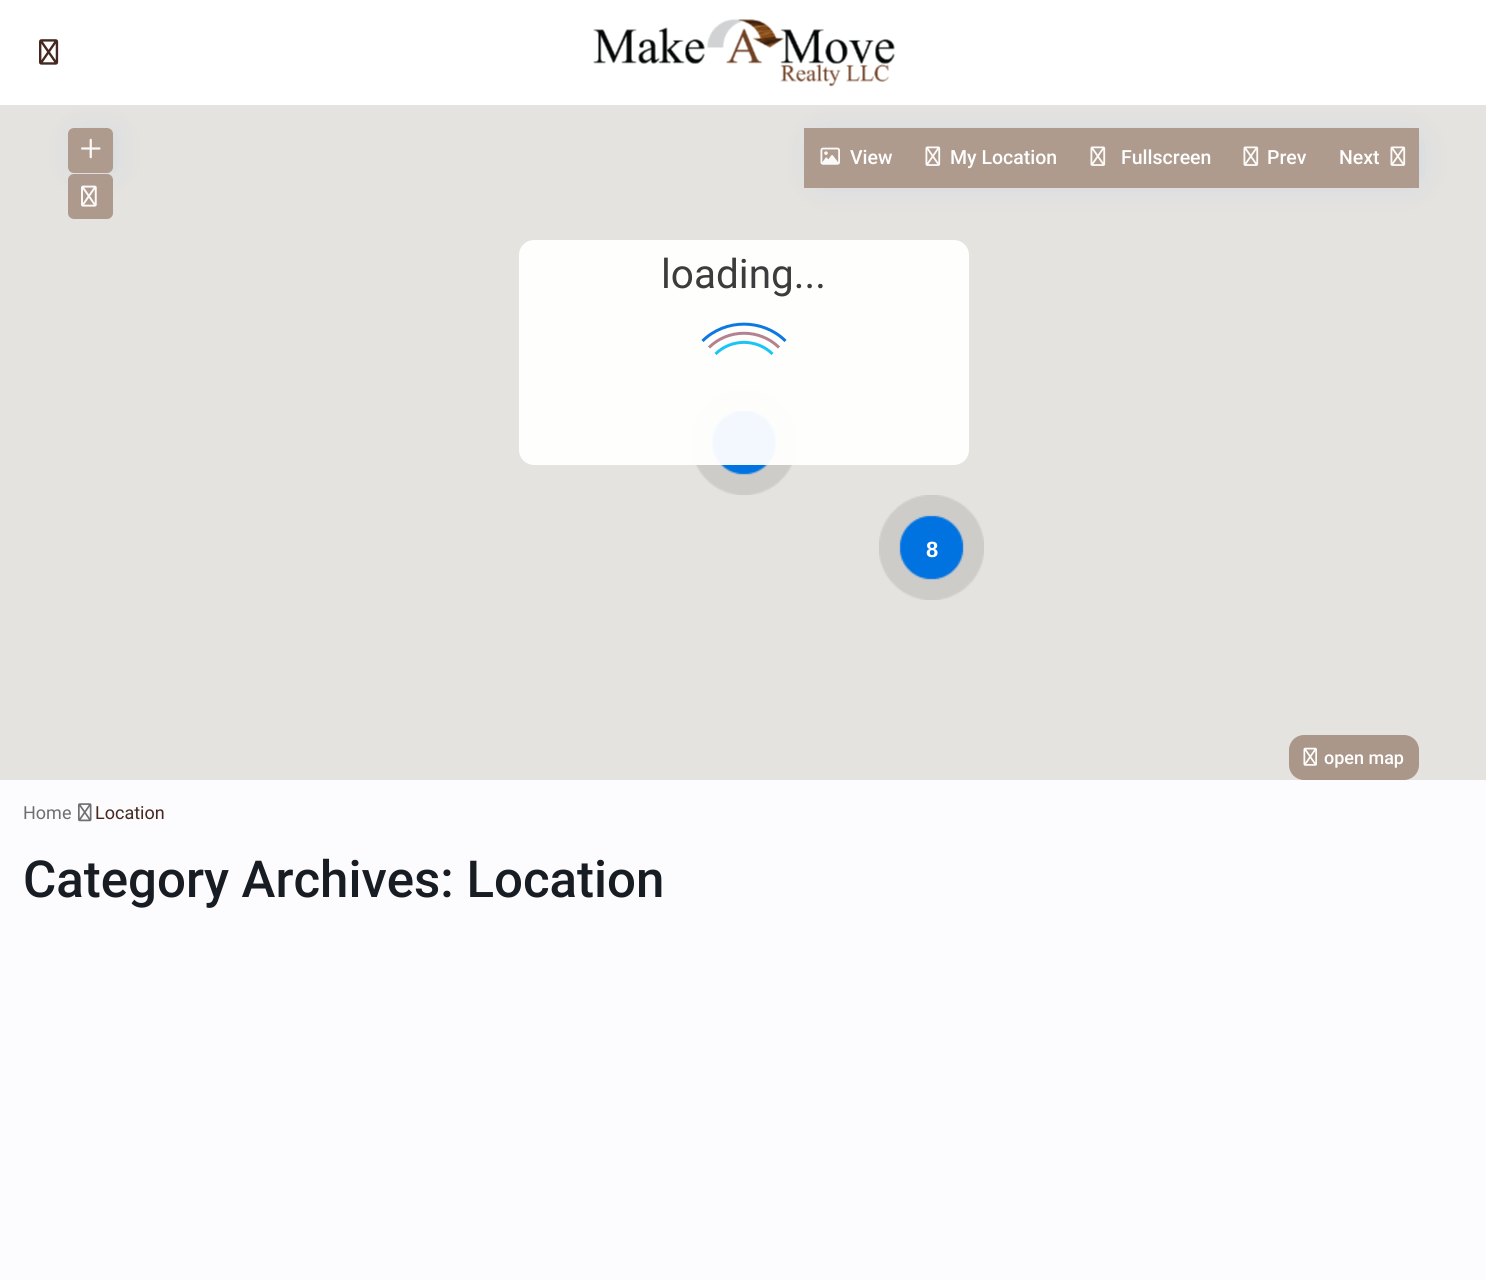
import math
import cairo

surface = cairo.ImageSurface(cairo.FORMAT_RGB24, 1486, 1280)
ctx = cairo.Context(surface)
options = cairo.FontOptions()
options.set_hint_metrics(cairo.HINT_METRICS_OFF)
options.set_hint_style(cairo.HINT_STYLE_NONE)
ctx.set_font_options(options)
ctx.set_miter_limit(4)


def round_rect(x, y, w, h, r):
    ctx.new_sub_path()
    for i, (u, v) in enumerate([(x + w - r, y + h - r), (x + r, y + h - r), (x + r, y + r), (x + w - r, y + r)]):
        ctx.arc(u, v, r, i * math.pi / 2, (i + 1) * math.pi / 2)
    ctx.close_path()


def shadow(x, y, w, h, r, blur, alpha):
    ctx.push_group_with_content(cairo.CONTENT_ALPHA)
    ctx.set_operator(cairo.OPERATOR_SOURCE)
    for i in range(15, -16, -2):
        e = blur * i / 6
        if min(w, h) + 2 * e > 0:
            ctx.set_source_rgba(0, 0, 0, alpha * math.erfc((i - 1) / 8.5) / 2)
            round_rect(x - e, y - e, w + 2 * e, h + 2 * e, max(0, min(r + e + blur * .6, min(w, h) / 2 + e)))
            ctx.fill()
    ctx.mask(ctx.pop_group())


def picture(path, x, y, w, h):
    ctx.save()
    ctx.set_source_surface(cairo.ImageSurface.create_from_png(path), x, y)
    ctx.rectangle(x, y, w, h)
    ctx.fill()
    ctx.restore()


ctx.set_source_rgb(0.988, 0.984, 0.992)
ctx.paint()
ctx.set_source_rgb(0.898, 0.89, 0.875)
ctx.rectangle(0, 105, 1486, 675)
ctx.fill()
ctx.set_source_rgb(0, 0.431, 0.882)
shadow(72, 129, 45, 45, 6, 15, 0.08)
shadow(809, 129, 615, 60, 15, 15, 0.08)
ctx.set_source_rgb(1, 1, 1)
ctx.rectangle(0, 0, 1486, 105)
ctx.fill()
picture("img1.png", 39, 39, 20, 26)
picture("img2.png", 593, 19, 302, 68)
picture("img8.png", 691, 390, 106, 105)
ctx.set_source_rgba(1, 1, 1, 0.95)
round_rect(519, 240, 450, 225, 15)
ctx.fill()
ctx.select_font_face("Roboto")
ctx.set_font_size(40.5)
ctx.set_source_rgb(0.235, 0.235, 0.235)
ctx.move_to(661, 288)
ctx.show_text("loading...")
ctx.new_path()
ctx.move_to(702.5, 341)
ctx.curve_to(725, 318.5, 763, 318.5, 785.5, 341)
ctx.set_source_rgb(0.043, 0.475, 0.882)
ctx.set_line_width(3)
ctx.stroke()
ctx.new_path()
ctx.move_to(709, 347.5)
ctx.curve_to(728, 328.5, 760, 328.5, 779, 347.5)
ctx.set_source_rgb(0.702, 0.51, 0.565)
ctx.stroke()
ctx.new_path()
ctx.move_to(715.5, 354)
ctx.curve_to(731, 338.5, 757, 338.5, 772.5, 354)
ctx.set_source_rgb(0.094, 0.773, 0.969)
ctx.stroke()
ctx.set_source_rgb(0.682, 0.608, 0.557)
round_rect(68, 128, 45, 45, 6)
ctx.fill()
picture("img3.png", 81, 138, 20, 21)
ctx.rectangle(804, 128, 615, 60)
ctx.fill()
picture("img4.png", 820, 147, 20, 18)
ctx.select_font_face("Roboto Medium")
ctx.set_font_size(19.5)
ctx.set_source_rgb(1, 1, 1)
ctx.move_to(850, 164)
ctx.show_text("View")
picture("img5.png", 925, 146, 16, 20)
ctx.move_to(950, 164)
ctx.show_text("My Location")
picture("img5.png", 1090, 146, 16, 20)
ctx.move_to(1121, 164)
ctx.show_text("Fullscreen")
picture("img5.png", 1243, 146, 16, 20)
ctx.move_to(1267, 164)
ctx.show_text("Prev")
ctx.move_to(1339, 164)
ctx.show_text("Next")
picture("img5.png", 1390, 146, 16, 20)
ctx.set_source_rgba(0.671, 0.592, 0.541, 0.95)
round_rect(68, 174, 45, 45, 6)
ctx.fill()
picture("img6.png", 81, 185, 16, 22)
ctx.set_source_rgb(0.671, 0.592, 0.541)
round_rect(1289, 735, 130, 45, 15)
ctx.fill()
picture("img7.png", 1303, 747, 14, 19)
ctx.set_font_size(18)
ctx.set_source_rgb(1, 1, 1)
ctx.move_to(1324, 764)
ctx.show_text("open map")
picture("img9.png", 879, 495, 105, 105)
ctx.select_font_face("Liberation Sans", cairo.FONT_SLANT_NORMAL, cairo.FONT_WEIGHT_BOLD)
ctx.set_font_size(22)
ctx.move_to(926, 557)
ctx.show_text("8")
ctx.select_font_face("Roboto")
ctx.set_font_size(18)
ctx.set_source_rgb(0.435, 0.435, 0.435)
ctx.move_to(23, 819)
ctx.show_text("Home")
picture("img10.png", 78, 803, 14, 19)
ctx.set_source_rgb(0.271, 0.157, 0.125)
ctx.move_to(95, 819)
ctx.show_text("Location")
ctx.select_font_face("Roboto Medium")
ctx.set_font_size(51)
ctx.set_source_rgb(0.094, 0.11, 0.137)
ctx.move_to(23, 897)
ctx.show_text("Category Archives: Location")
surface.write_to_png("page.png")
